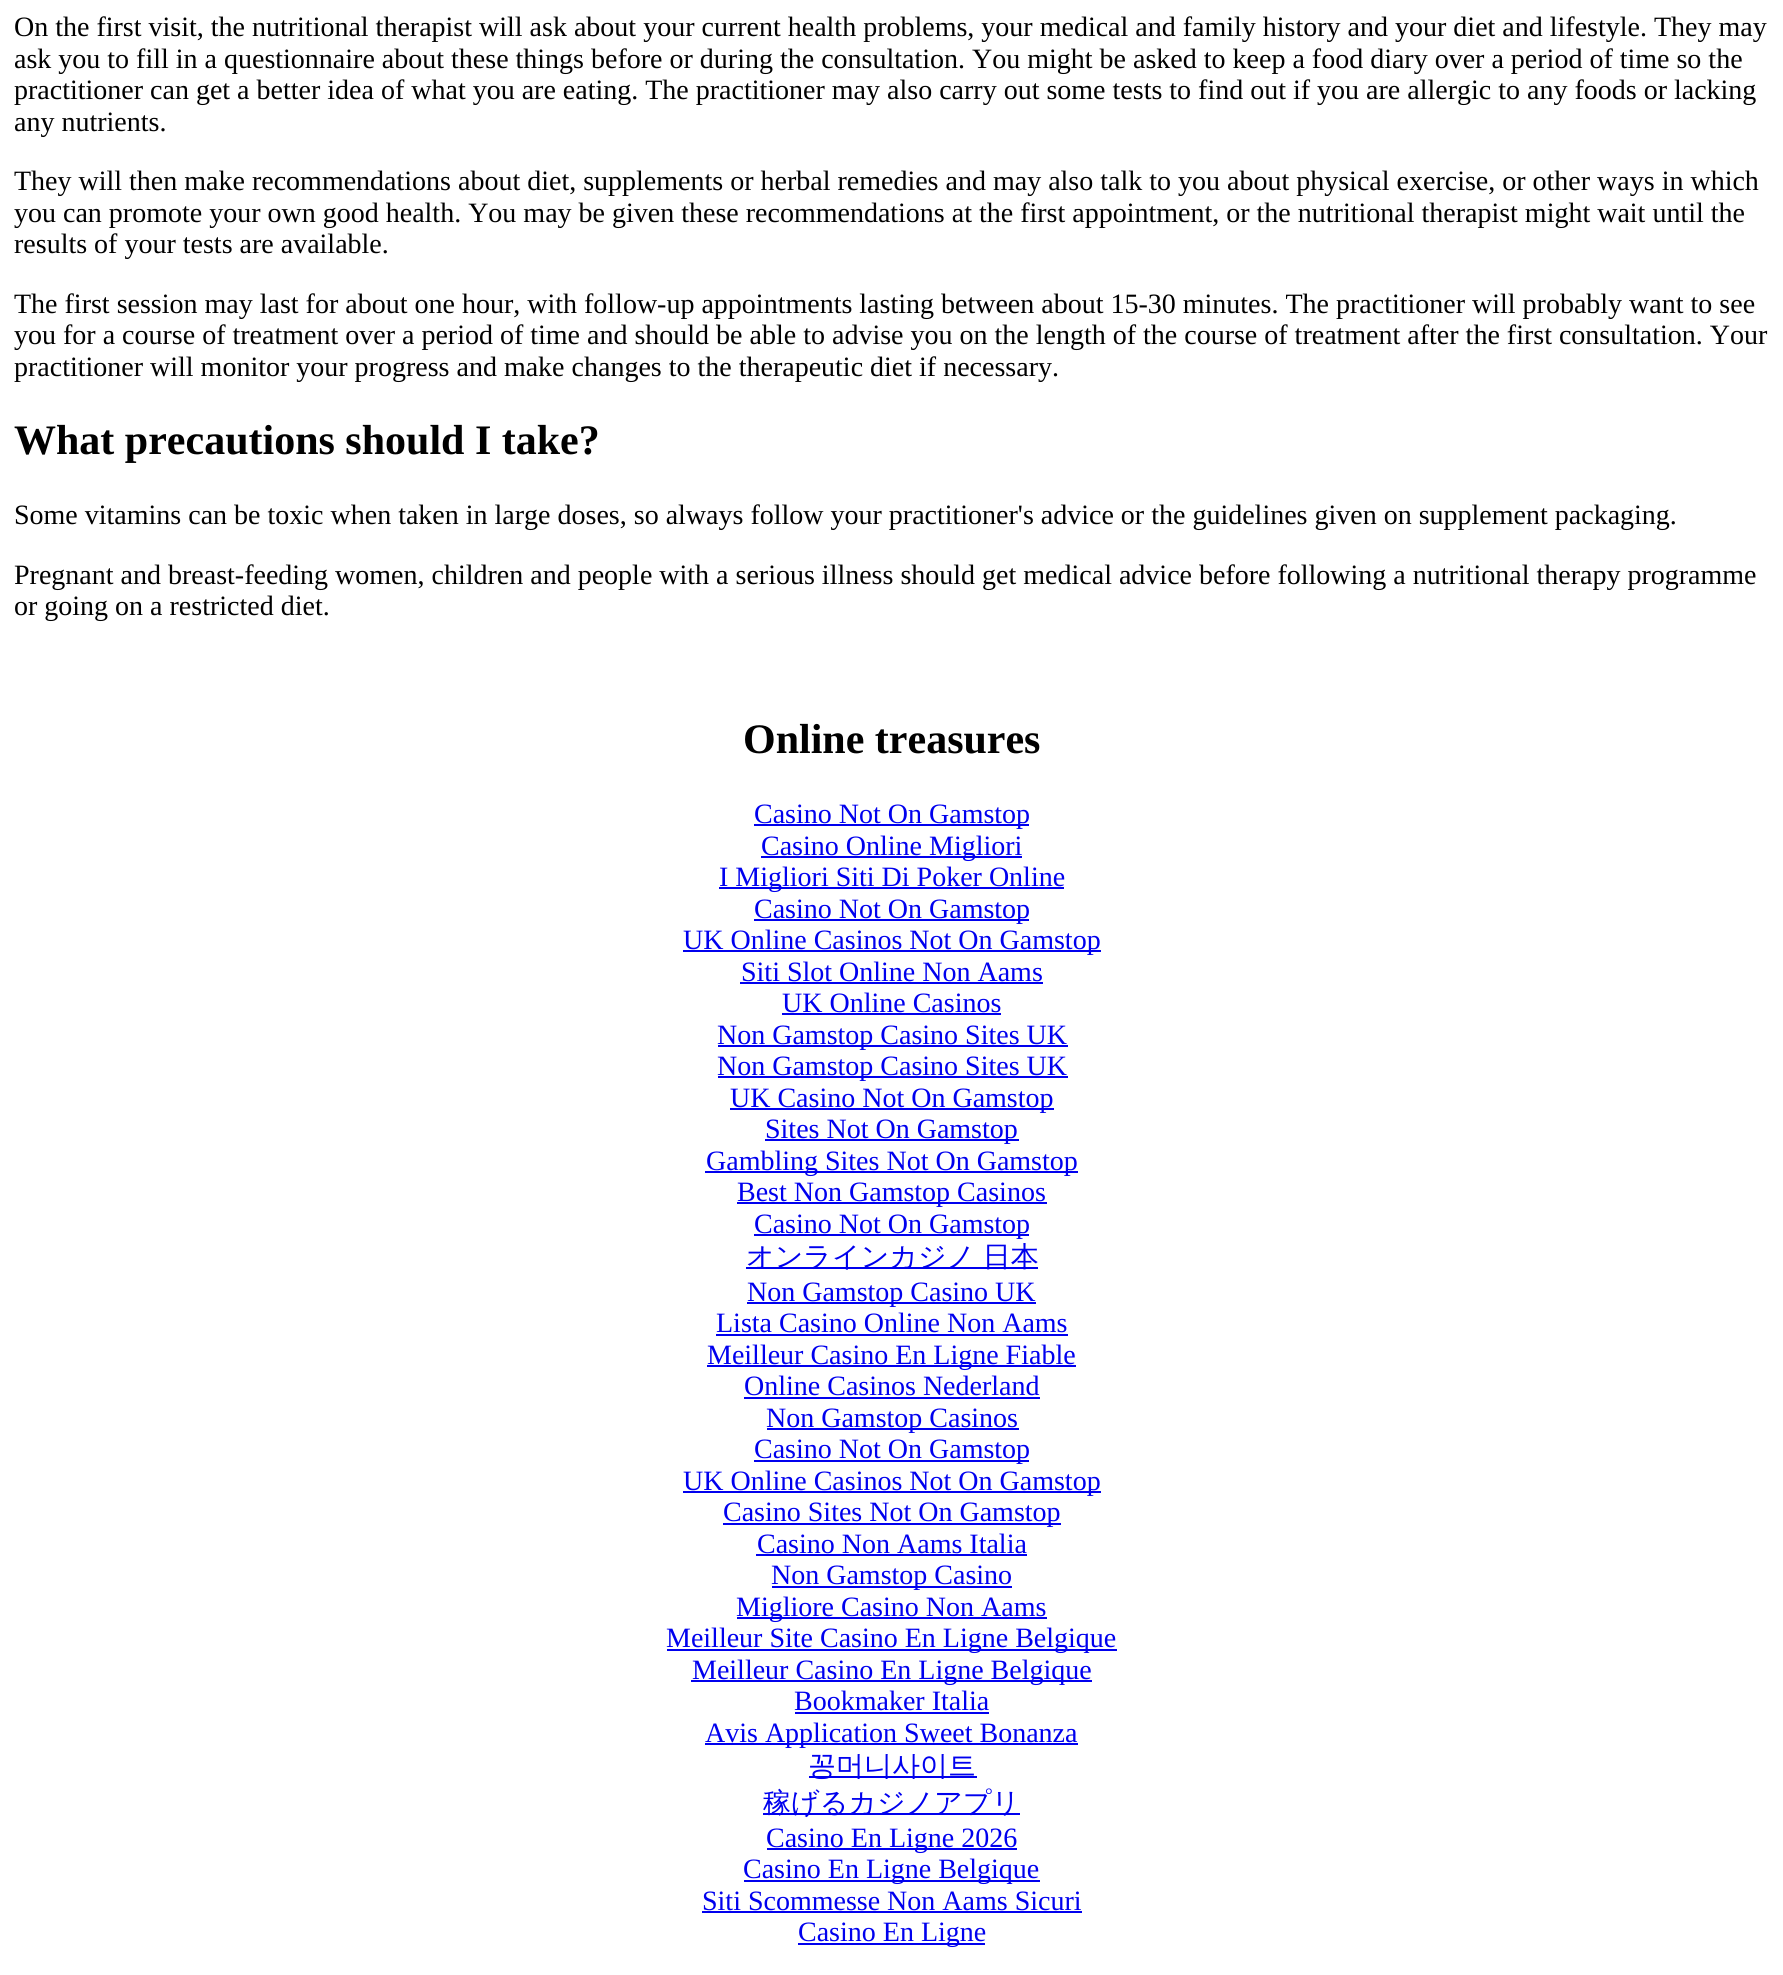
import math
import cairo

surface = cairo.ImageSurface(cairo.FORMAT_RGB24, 1783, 1975)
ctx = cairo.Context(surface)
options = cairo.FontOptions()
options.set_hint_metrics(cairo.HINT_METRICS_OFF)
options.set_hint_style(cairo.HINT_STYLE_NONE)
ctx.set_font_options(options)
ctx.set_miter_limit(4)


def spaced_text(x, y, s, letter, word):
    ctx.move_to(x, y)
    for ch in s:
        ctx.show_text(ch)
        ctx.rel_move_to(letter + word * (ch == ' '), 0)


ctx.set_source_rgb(1, 1, 1)
ctx.paint()
ctx.select_font_face("Liberation Serif")
ctx.set_font_size(28)
ctx.set_source_rgb(0, 0, 0)
ctx.move_to(14, 36)
ctx.show_text("On the first visit, the nutritional therapist will ask about your current health problems, your medical and family history and your diet and lifestyle. They may")
ctx.move_to(14, 68)
ctx.show_text("ask you to fill in a questionnaire about these things before or during the consultation. You might be asked to keep a food diary over a period of time so the")
ctx.move_to(14, 99)
ctx.show_text("practitioner can get a better idea of what you are eating. The practitioner may also carry out some tests to find out if you are allergic to any foods or lacking")
ctx.move_to(14, 131)
ctx.show_text("any nutrients.")
ctx.move_to(14, 190)
ctx.show_text("They will then make recommendations about diet, supplements or herbal remedies and may also talk to you about physical exercise, or other ways in which")
ctx.move_to(14, 222)
ctx.show_text("you can promote your own good health. You may be given these recommendations at the first appointment, or the nutritional therapist might wait until the")
ctx.move_to(14, 253)
ctx.show_text("results of your tests are available.")
ctx.move_to(14, 313)
ctx.show_text("The first session may last for about one hour, with follow-up appointments lasting between about 15-30 minutes. The practitioner will probably want to see")
ctx.move_to(14, 344)
ctx.show_text("you for a course of treatment over a period of time and should be able to advise you on the length of the course of treatment after the first consultation. Your")
ctx.move_to(14, 376)
ctx.show_text("practitioner will monitor your progress and make changes to the therapeutic diet if necessary.")
ctx.select_font_face("Liberation Serif", cairo.FONT_SLANT_NORMAL, cairo.FONT_WEIGHT_BOLD)
ctx.set_font_size(42)
ctx.move_to(14, 454)
ctx.show_text("What precautions should I take?")
ctx.select_font_face("Liberation Serif")
ctx.set_font_size(28)
ctx.move_to(14, 524)
ctx.show_text("Some vitamins can be toxic when taken in large doses, so always follow your practitioner's advice or the guidelines given on supplement packaging.")
ctx.move_to(14, 584)
ctx.show_text("Pregnant and breast-feeding women, children and people with a serious illness should get medical advice before following a nutritional therapy programme")
ctx.move_to(14, 615)
ctx.show_text("or going on a restricted diet.")
ctx.select_font_face("Liberation Serif", cairo.FONT_SLANT_NORMAL, cairo.FONT_WEIGHT_BOLD)
ctx.set_font_size(42)
ctx.move_to(743, 753)
ctx.show_text("Online treasures")
ctx.set_source_rgb(0, 0, 0.933)
ctx.rectangle(754, 824, 275, 2)
ctx.fill()
ctx.select_font_face("Liberation Serif")
ctx.set_font_size(28)
ctx.move_to(754, 823)
ctx.show_text("Casino Not On Gamstop")
ctx.rectangle(761, 856, 261, 2)
ctx.fill()
ctx.move_to(761, 855)
ctx.show_text("Casino Online Migliori")
ctx.rectangle(719, 887, 345, 2)
ctx.fill()
ctx.move_to(719, 886)
ctx.show_text("I Migliori Siti Di Poker Online")
ctx.rectangle(754, 919, 275, 2)
ctx.fill()
ctx.move_to(754, 918)
ctx.show_text("Casino Not On Gamstop")
ctx.rectangle(683, 950, 418, 2)
ctx.fill()
ctx.move_to(683, 949)
ctx.show_text("UK Online Casinos Not On Gamstop")
ctx.move_to(741, 981)
ctx.show_text("Siti Slot Online Non Aams")
ctx.rectangle(740, 982, 303, 2)
ctx.fill()
ctx.move_to(782, 1012)
ctx.show_text("UK Online Casinos")
ctx.rectangle(782, 1013, 219, 2)
ctx.fill()
ctx.rectangle(718, 1045, 350, 2)
ctx.fill()
ctx.move_to(717, 1044)
ctx.show_text("Non Gamstop Casino Sites UK")
ctx.rectangle(718, 1076, 350, 2)
ctx.fill()
ctx.move_to(717, 1075)
ctx.show_text("Non Gamstop Casino Sites UK")
ctx.rectangle(730, 1108, 324, 2)
ctx.fill()
ctx.move_to(730, 1107)
ctx.show_text("UK Casino Not On Gamstop")
ctx.rectangle(765, 1139, 254, 2)
ctx.fill()
ctx.move_to(765, 1138)
ctx.show_text("Sites Not On Gamstop")
ctx.rectangle(705, 1171, 373, 2)
ctx.fill()
ctx.move_to(706, 1170)
ctx.show_text("Gambling Sites Not On Gamstop")
ctx.rectangle(737, 1202, 310, 2)
ctx.fill()
ctx.move_to(737, 1201)
ctx.show_text("Best Non Gamstop Casinos")
ctx.rectangle(754, 1234, 275, 2)
ctx.fill()
ctx.move_to(754, 1233)
ctx.show_text("Casino Not On Gamstop")
ctx.rectangle(746, 1267, 292, 2)
ctx.fill()
ctx.select_font_face("WenQuanYi Zen Hei Medium")
spaced_text(746, 1266, "オンラインカジノ 日本", 0, -1)
ctx.rectangle(747, 1302, 289, 2)
ctx.fill()
ctx.select_font_face("Liberation Serif")
ctx.move_to(747, 1301)
ctx.show_text("Non Gamstop Casino UK")
ctx.move_to(716, 1332)
ctx.show_text("Lista Casino Online Non Aams")
ctx.rectangle(716, 1334, 352, 2)
ctx.fill()
ctx.rectangle(707, 1365, 369, 2)
ctx.fill()
ctx.move_to(707, 1364)
ctx.show_text("Meilleur Casino En Ligne Fiable")
ctx.move_to(744, 1395)
ctx.show_text("Online Casinos Nederland")
ctx.rectangle(744, 1397, 296, 2)
ctx.fill()
ctx.rectangle(767, 1428, 252, 2)
ctx.fill()
ctx.move_to(766, 1427)
ctx.show_text("Non Gamstop Casinos")
ctx.rectangle(754, 1460, 275, 2)
ctx.fill()
ctx.move_to(754, 1458)
ctx.show_text("Casino Not On Gamstop")
ctx.rectangle(683, 1491, 418, 2)
ctx.fill()
ctx.move_to(683, 1490)
ctx.show_text("UK Online Casinos Not On Gamstop")
ctx.rectangle(723, 1523, 338, 2)
ctx.fill()
ctx.move_to(723, 1521)
ctx.show_text("Casino Sites Not On Gamstop")
ctx.move_to(757, 1553)
ctx.show_text("Casino Non Aams Italia")
ctx.rectangle(756, 1554, 271, 2)
ctx.fill()
ctx.rectangle(772, 1586, 240, 2)
ctx.fill()
ctx.move_to(771, 1584)
ctx.show_text("Non Gamstop Casino")
ctx.rectangle(737, 1617, 310, 2)
ctx.fill()
ctx.move_to(736, 1616)
ctx.show_text("Migliore Casino Non Aams")
ctx.rectangle(667, 1649, 450, 2)
ctx.fill()
ctx.move_to(666, 1647)
ctx.show_text("Meilleur Site Casino En Ligne Belgique")
ctx.rectangle(691, 1680, 401, 2)
ctx.fill()
ctx.move_to(692, 1679)
ctx.show_text("Meilleur Casino En Ligne Belgique")
ctx.move_to(794, 1710)
ctx.show_text("Bookmaker Italia")
ctx.rectangle(795, 1712, 194, 2)
ctx.fill()
ctx.rectangle(705, 1743, 373, 2)
ctx.fill()
ctx.move_to(705, 1742)
ctx.show_text("Avis Application Sweet Bonanza")
ctx.rectangle(809, 1776, 168, 2)
ctx.fill()
ctx.select_font_face("WenQuanYi Zen Hei Medium")
ctx.move_to(808, 1775)
ctx.show_text("꽁머니사이트")
ctx.rectangle(763, 1813, 257, 2)
ctx.fill()
ctx.move_to(763, 1812)
ctx.show_text("稼げるカジノアプリ")
ctx.rectangle(767, 1848, 250, 2)
ctx.fill()
ctx.select_font_face("Liberation Serif")
ctx.move_to(766, 1847)
ctx.show_text("Casino En Ligne 2026")
ctx.rectangle(744, 1880, 296, 2)
ctx.fill()
ctx.move_to(743, 1878)
ctx.show_text("Casino En Ligne Belgique")
ctx.move_to(702, 1910)
ctx.show_text("Siti Scommesse Non Aams Sicuri")
ctx.rectangle(702, 1911, 380, 2)
ctx.fill()
ctx.rectangle(798, 1943, 187, 2)
ctx.fill()
ctx.move_to(798, 1941)
ctx.show_text("Casino En Ligne")
surface.write_to_png("page.png")
